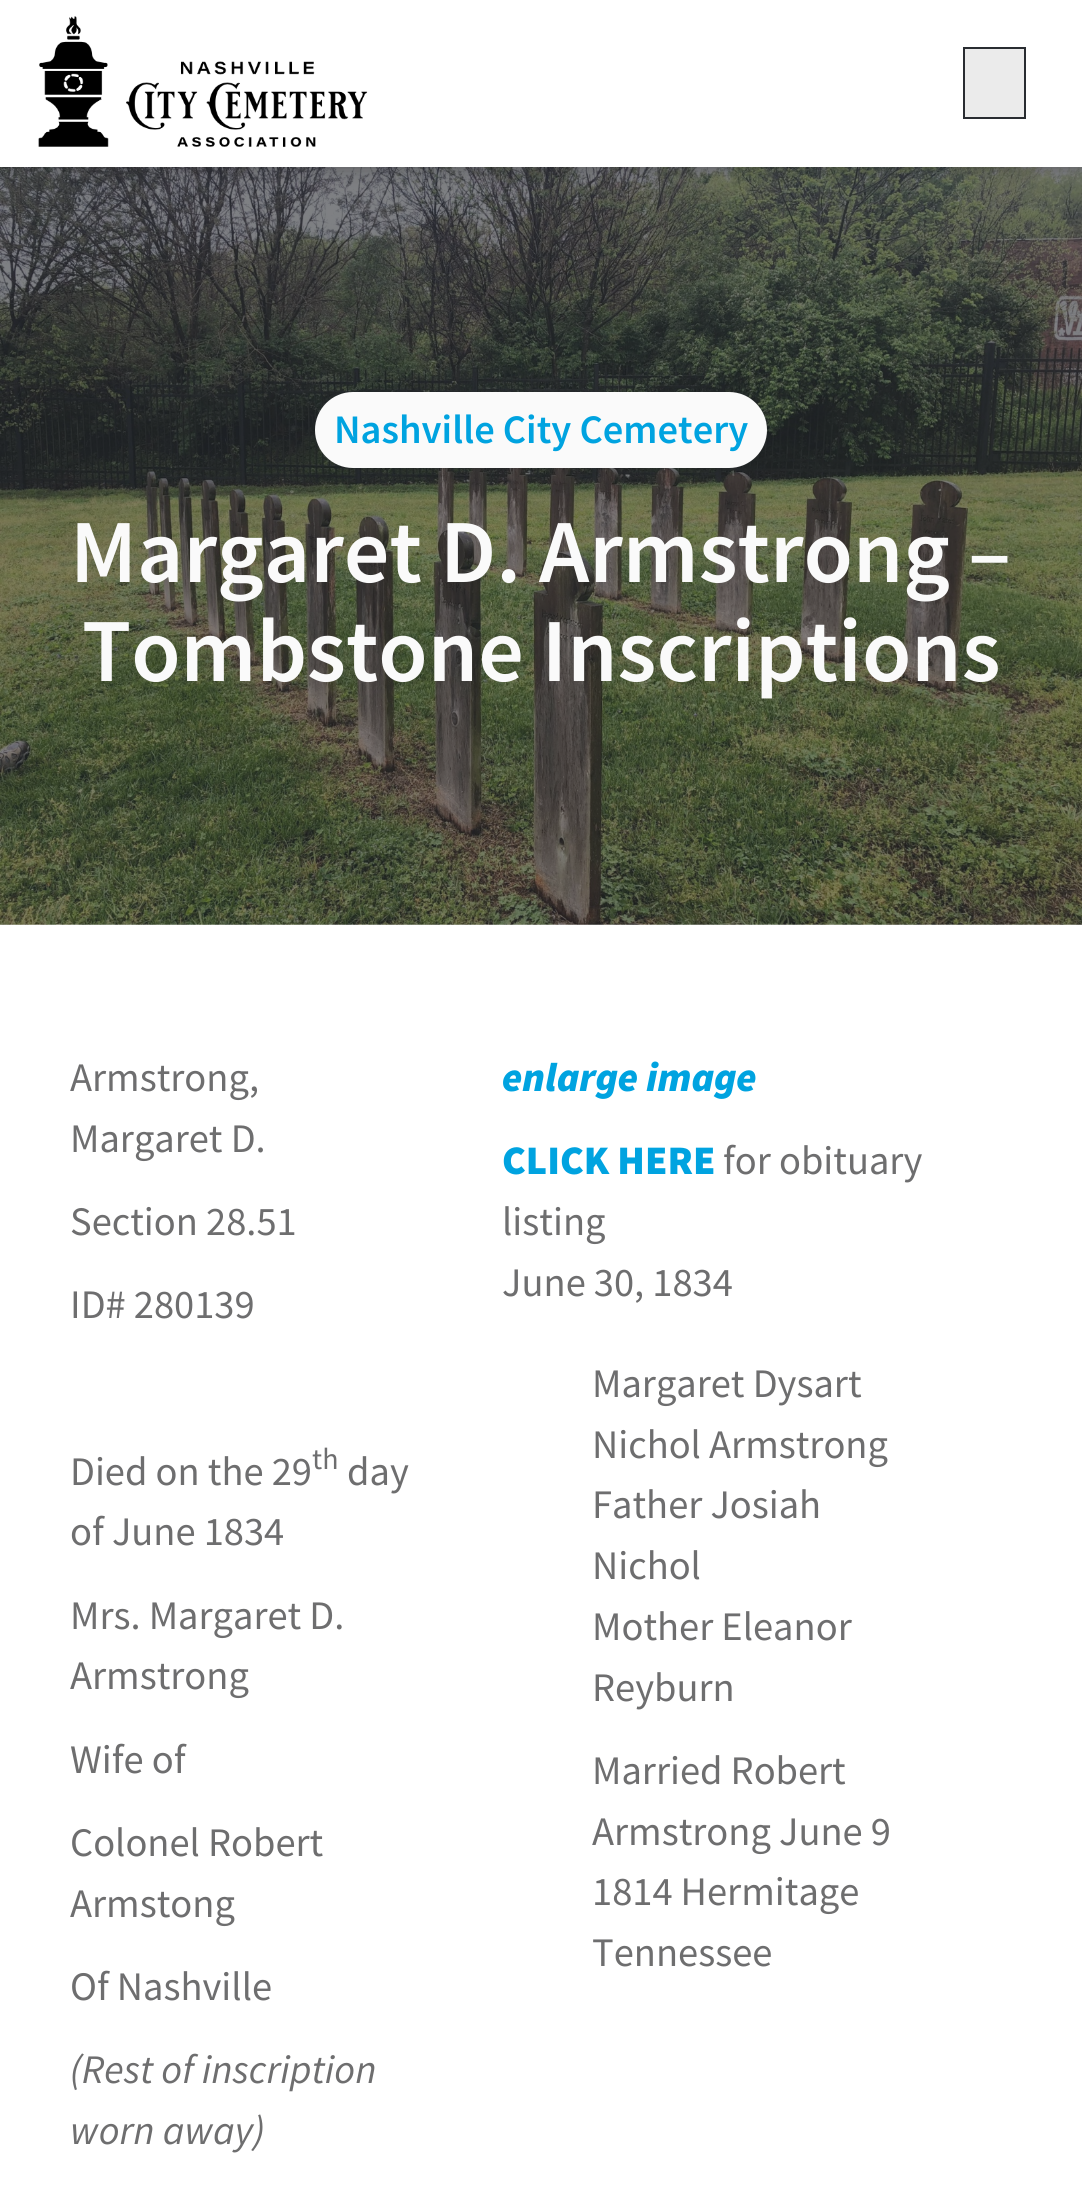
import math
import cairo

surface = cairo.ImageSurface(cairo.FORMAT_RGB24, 1082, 2201)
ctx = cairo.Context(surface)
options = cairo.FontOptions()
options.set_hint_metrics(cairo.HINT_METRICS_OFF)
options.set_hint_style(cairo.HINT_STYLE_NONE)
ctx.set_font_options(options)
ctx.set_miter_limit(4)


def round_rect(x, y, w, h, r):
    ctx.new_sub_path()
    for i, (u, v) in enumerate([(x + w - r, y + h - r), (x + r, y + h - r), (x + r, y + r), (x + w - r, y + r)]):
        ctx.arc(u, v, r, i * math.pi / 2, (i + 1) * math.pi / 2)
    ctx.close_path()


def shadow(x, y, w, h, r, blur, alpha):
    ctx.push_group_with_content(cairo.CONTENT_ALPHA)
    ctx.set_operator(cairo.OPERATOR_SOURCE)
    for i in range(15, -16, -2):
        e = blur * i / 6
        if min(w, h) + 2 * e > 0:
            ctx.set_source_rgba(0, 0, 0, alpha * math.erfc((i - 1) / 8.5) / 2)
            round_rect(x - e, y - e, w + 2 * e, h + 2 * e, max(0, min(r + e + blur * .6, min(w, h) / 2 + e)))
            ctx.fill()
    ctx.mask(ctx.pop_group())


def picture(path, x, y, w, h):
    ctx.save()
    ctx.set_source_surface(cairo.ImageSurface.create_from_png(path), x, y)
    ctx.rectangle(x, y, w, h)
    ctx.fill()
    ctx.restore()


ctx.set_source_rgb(1, 1, 1)
ctx.paint()
picture("img2.png", 0, 167, 1082, 758)
ctx.set_source_rgb(0, 0, 0)
shadow(0, 0, 1082, 167, 0, 11, 0.31)
ctx.set_source_rgb(1, 1, 1)
ctx.rectangle(0, 0, 1082, 167)
ctx.fill()
picture("img1.png", 38, 16, 330, 131)
ctx.set_source_rgb(0.918, 0.918, 0.918)
ctx.rectangle(964, 48, 61, 70)
ctx.fill_preserve()
ctx.set_source_rgb(0.161, 0.173, 0.192)
ctx.stroke()
ctx.set_source_rgb(0.98, 0.98, 0.98)
round_rect(315, 392, 452, 76, 38)
ctx.fill()
ctx.select_font_face("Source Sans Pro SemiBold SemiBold")
ctx.set_font_size(40.5)
ctx.set_source_rgb(0, 0.639, 0.878)
ctx.move_to(334, 443)
ctx.show_text("Nashville City Cemetery")
ctx.set_font_size(90)
ctx.set_source_rgb(0.98, 0.98, 0.98)
ctx.move_to(70, 582)
ctx.show_text("Margaret D. Armstrong –")
ctx.move_to(82, 681)
ctx.show_text("Tombstone Inscriptions")
ctx.select_font_face("Source Sans Pro")
ctx.set_font_size(40.5)
ctx.set_source_rgb(0.431, 0.431, 0.435)
ctx.move_to(70, 1091)
ctx.show_text("Armstrong,")
ctx.move_to(70, 1152)
ctx.show_text("Margaret D.")
ctx.move_to(70, 1235)
ctx.show_text("Section 28.51")
ctx.move_to(70, 1318)
ctx.show_text("ID# 280139")
ctx.move_to(70, 1485)
ctx.show_text("Died on the 29")
ctx.set_font_size(30)
ctx.move_to(312, 1469)
ctx.show_text("th")
ctx.set_font_size(40.5)
ctx.move_to(347, 1485)
ctx.show_text("day")
ctx.move_to(70, 1545)
ctx.show_text("of June 1834")
ctx.move_to(70, 1629)
ctx.show_text("Mrs. Margaret D.")
ctx.move_to(70, 1689)
ctx.show_text("Armstrong")
ctx.move_to(70, 1773)
ctx.show_text("Wife of")
ctx.move_to(70, 1856)
ctx.show_text("Colonel Robert")
ctx.move_to(70, 1917)
ctx.show_text("Armstong")
ctx.move_to(70, 2000)
ctx.show_text("Of Nashville")
ctx.select_font_face("Source Sans Pro", cairo.FONT_SLANT_ITALIC)
ctx.move_to(70, 2083)
ctx.show_text("(Rest of inscription")
ctx.move_to(70, 2144)
ctx.show_text("worn away)")
ctx.select_font_face("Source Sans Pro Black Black", cairo.FONT_SLANT_ITALIC)
ctx.set_source_rgb(0, 0.639, 0.878)
ctx.move_to(502, 1091)
ctx.show_text("enlarge image")
ctx.select_font_face("Source Sans Pro Black Black")
ctx.move_to(502, 1174)
ctx.show_text("CLICK HERE")
ctx.select_font_face("Source Sans Pro")
ctx.set_source_rgb(0.431, 0.431, 0.435)
ctx.move_to(723, 1174)
ctx.show_text("for obituary")
ctx.move_to(502, 1235)
ctx.show_text("listing")
ctx.move_to(502, 1296)
ctx.show_text("June 30, 1834")
ctx.move_to(592, 1397)
ctx.show_text("Margaret Dysart")
ctx.move_to(592, 1458)
ctx.show_text("Nichol Armstrong")
ctx.move_to(592, 1518)
ctx.show_text("Father Josiah")
ctx.move_to(592, 1579)
ctx.show_text("Nichol")
ctx.move_to(592, 1640)
ctx.show_text("Mother Eleanor")
ctx.move_to(592, 1701)
ctx.show_text("Reyburn")
ctx.move_to(592, 1784)
ctx.show_text("Married Robert")
ctx.move_to(592, 1845)
ctx.show_text("Armstrong June 9")
ctx.move_to(592, 1905)
ctx.show_text("1814 Hermitage")
ctx.move_to(592, 1966)
ctx.show_text("Tennessee")
surface.write_to_png("page.png")
